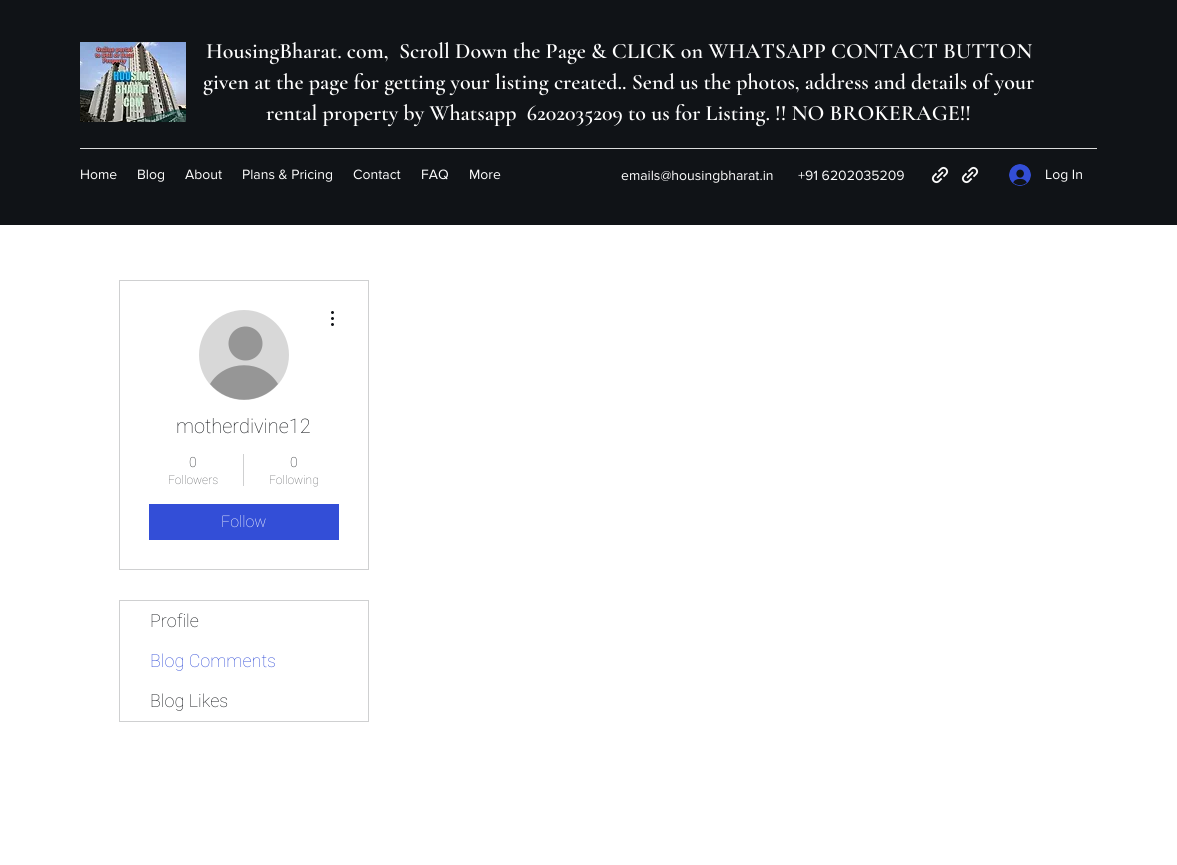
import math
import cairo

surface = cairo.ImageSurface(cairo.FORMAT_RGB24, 1177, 865)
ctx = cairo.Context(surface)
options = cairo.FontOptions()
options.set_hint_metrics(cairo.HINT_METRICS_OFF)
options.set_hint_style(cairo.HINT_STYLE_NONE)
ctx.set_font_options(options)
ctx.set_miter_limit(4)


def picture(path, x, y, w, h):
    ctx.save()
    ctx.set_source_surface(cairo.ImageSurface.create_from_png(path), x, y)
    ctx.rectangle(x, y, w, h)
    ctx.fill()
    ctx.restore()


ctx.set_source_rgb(1, 1, 1)
ctx.paint()
ctx.set_source_rgb(0.063, 0.075, 0.09)
ctx.rectangle(0, 0, 1177, 225)
ctx.fill()
picture("img1.png", 80, 42, 106, 80)
ctx.select_font_face("Cormorant Garamond SemiBold")
ctx.set_font_size(22)
ctx.set_source_rgb(1, 1, 1)
ctx.move_to(206, 58)
ctx.show_text("HousingBharat. com,  Scroll Down the Page & CLICK on WHATSAPP CONTACT BUTTON")
ctx.move_to(203, 89)
ctx.show_text("given at the page for getting your listing created.. Send us the photos, address and details of your")
ctx.move_to(266, 120)
ctx.show_text("rental property by Whatsapp  6202035209 to us for Listing. !! NO BROKERAGE!!")
ctx.set_source_rgb(0.859, 0.863, 0.863)
ctx.rectangle(80, 148, 1017, 1)
ctx.fill()
ctx.select_font_face("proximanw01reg")
ctx.set_font_size(14)
ctx.set_source_rgb(1, 1, 1)
ctx.move_to(80, 179)
ctx.show_text("Home")
ctx.move_to(137, 179)
ctx.show_text("Blog")
ctx.move_to(185, 179)
ctx.show_text("About")
ctx.move_to(242, 179)
ctx.show_text("Plans & Pricing")
ctx.move_to(353, 179)
ctx.show_text("Contact")
ctx.move_to(421, 179)
ctx.show_text("FAQ")
ctx.move_to(469, 179)
ctx.show_text("More")
ctx.move_to(621, 180)
ctx.show_text("emails@housingbharat.in")
ctx.move_to(798, 180)
ctx.show_text("+91 6202035209")
picture("img2.png", 931, 166, 18, 18)
picture("img2.png", 961, 166, 18, 18)
picture("img3.png", 1009, 164, 22, 22)
ctx.move_to(1045, 179)
ctx.show_text("Log In")
ctx.rectangle(119.5, 280.5, 249, 289)
ctx.set_source_rgb(0.812, 0.816, 0.82)
ctx.set_line_width(1)
ctx.stroke()
ctx.set_source_rgb(0.847, 0.847, 0.847)
ctx.arc(244, 355, 45, 0, 2 * math.pi)
ctx.fill()
ctx.set_source_rgb(0.588, 0.588, 0.588)
ctx.arc(245.5, 343.5, 17, 0, 2 * math.pi)
ctx.fill()
ctx.new_path()
ctx.move_to(278, 384)
ctx.curve_to(260, 405, 228, 405, 210, 384)
ctx.curve_to(225, 359, 263, 359, 278, 384)
ctx.close_path()
ctx.fill()
picture("img4.png", 331, 311, 3, 15)
ctx.select_font_face("Roboto Thin")
ctx.set_font_size(20)
ctx.set_source_rgb(0.063, 0.075, 0.09)
ctx.move_to(176, 433)
ctx.show_text("motherdivine12")
ctx.set_font_size(14)
ctx.move_to(189, 467)
ctx.show_text("0")
ctx.set_font_size(12)
ctx.set_source_rgb(0.345, 0.353, 0.365)
ctx.move_to(168, 484)
ctx.show_text("Followers")
ctx.set_source_rgb(0.812, 0.816, 0.82)
ctx.rectangle(243, 454, 1, 32)
ctx.fill()
ctx.set_font_size(14)
ctx.set_source_rgb(0.063, 0.075, 0.09)
ctx.move_to(290, 467)
ctx.show_text("0")
ctx.set_font_size(12)
ctx.set_source_rgb(0.345, 0.353, 0.365)
ctx.move_to(269, 484)
ctx.show_text("Following")
ctx.set_source_rgb(0.2, 0.306, 0.843)
ctx.rectangle(149, 504, 190, 36)
ctx.fill()
ctx.set_font_size(16)
ctx.set_source_rgb(1, 1, 1)
ctx.move_to(221, 527)
ctx.show_text("Follow")
ctx.rectangle(119.5, 600.5, 249, 121)
ctx.set_source_rgb(0.812, 0.816, 0.82)
ctx.stroke()
ctx.set_font_size(18)
ctx.set_source_rgb(0.063, 0.075, 0.09)
ctx.move_to(150, 627)
ctx.show_text("Profile")
ctx.set_source_rgb(0.2, 0.306, 0.843)
ctx.move_to(150, 667)
ctx.show_text("Blog Comments")
ctx.set_source_rgb(0.063, 0.075, 0.09)
ctx.move_to(150, 707)
ctx.show_text("Blog Likes")
surface.write_to_png("page.png")
